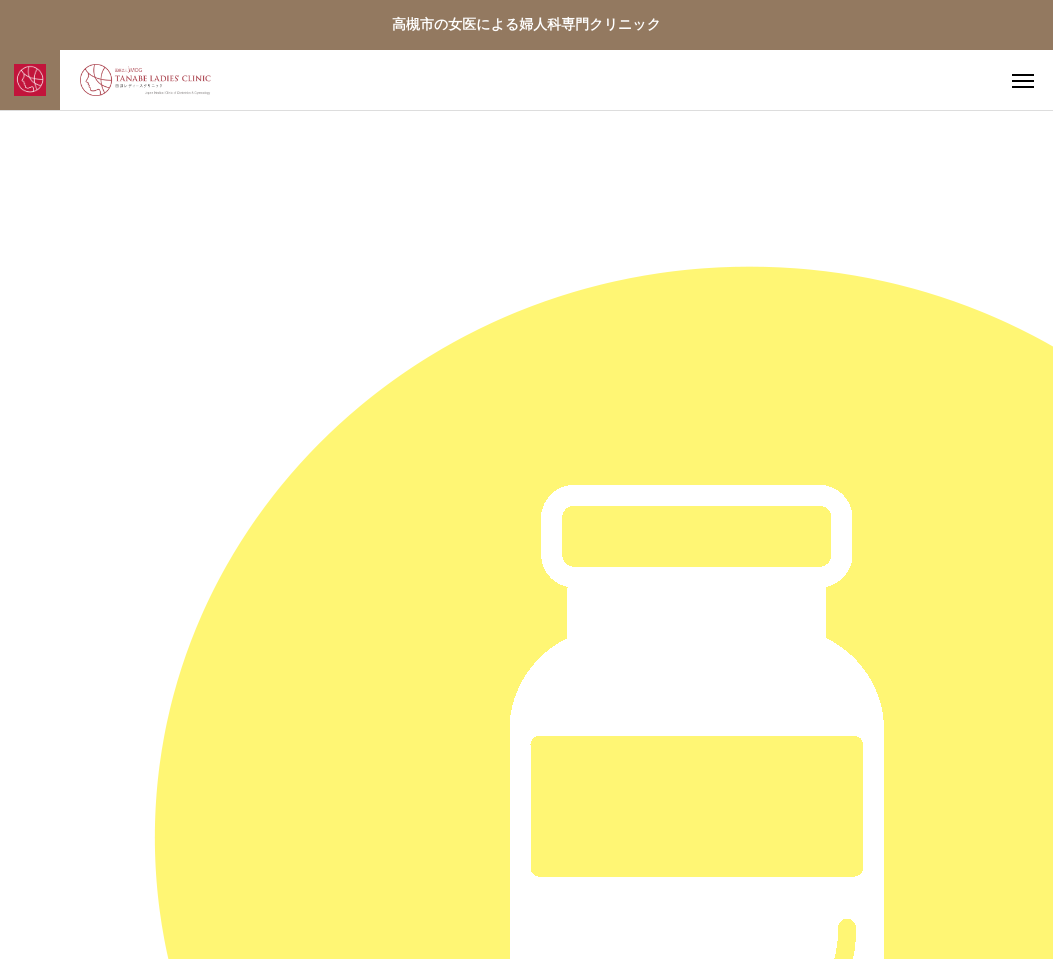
import math
import cairo

surface = cairo.ImageSurface(cairo.FORMAT_RGB24, 1053, 959)
ctx = cairo.Context(surface)
options = cairo.FontOptions()
options.set_hint_metrics(cairo.HINT_METRICS_OFF)
options.set_hint_style(cairo.HINT_STYLE_NONE)
ctx.set_font_options(options)
ctx.set_miter_limit(4)


def picture(path, x, y, w, h):
    ctx.save()
    ctx.set_source_surface(cairo.ImageSurface.create_from_png(path), x, y)
    ctx.rectangle(x, y, w, h)
    ctx.fill()
    ctx.restore()


ctx.set_source_rgb(1, 1, 1)
ctx.paint()
ctx.set_source_rgb(0.576, 0.475, 0.376)
ctx.rectangle(0, 0, 1053, 50)
ctx.fill()
ctx.select_font_face("WenQuanYi Zen Hei", cairo.FONT_SLANT_NORMAL, cairo.FONT_WEIGHT_BOLD)
ctx.set_font_size(14)
ctx.set_source_rgb(1, 1, 1)
ctx.move_to(392, 29)
ctx.show_text("高槻市の女医による婦人科専門クリニック")
ctx.set_source_rgb(0.576, 0.475, 0.376)
ctx.rectangle(0, 50, 60, 60)
ctx.fill()
picture("img1.png", 14, 64, 32, 32)
picture("img2.png", 80, 64, 131, 32)
ctx.set_source_rgb(0, 0, 0)
ctx.rectangle(1012, 74, 22, 2)
ctx.fill()
ctx.rectangle(1012, 80, 22, 2)
ctx.fill()
ctx.rectangle(1012, 86, 22, 2)
ctx.fill()
ctx.set_source_rgb(0.867, 0.867, 0.867)
ctx.rectangle(0, 110, 1053, 1)
ctx.fill()
picture("img3.png", 154, 266, 899, 693)
surface.write_to_png("page.png")
